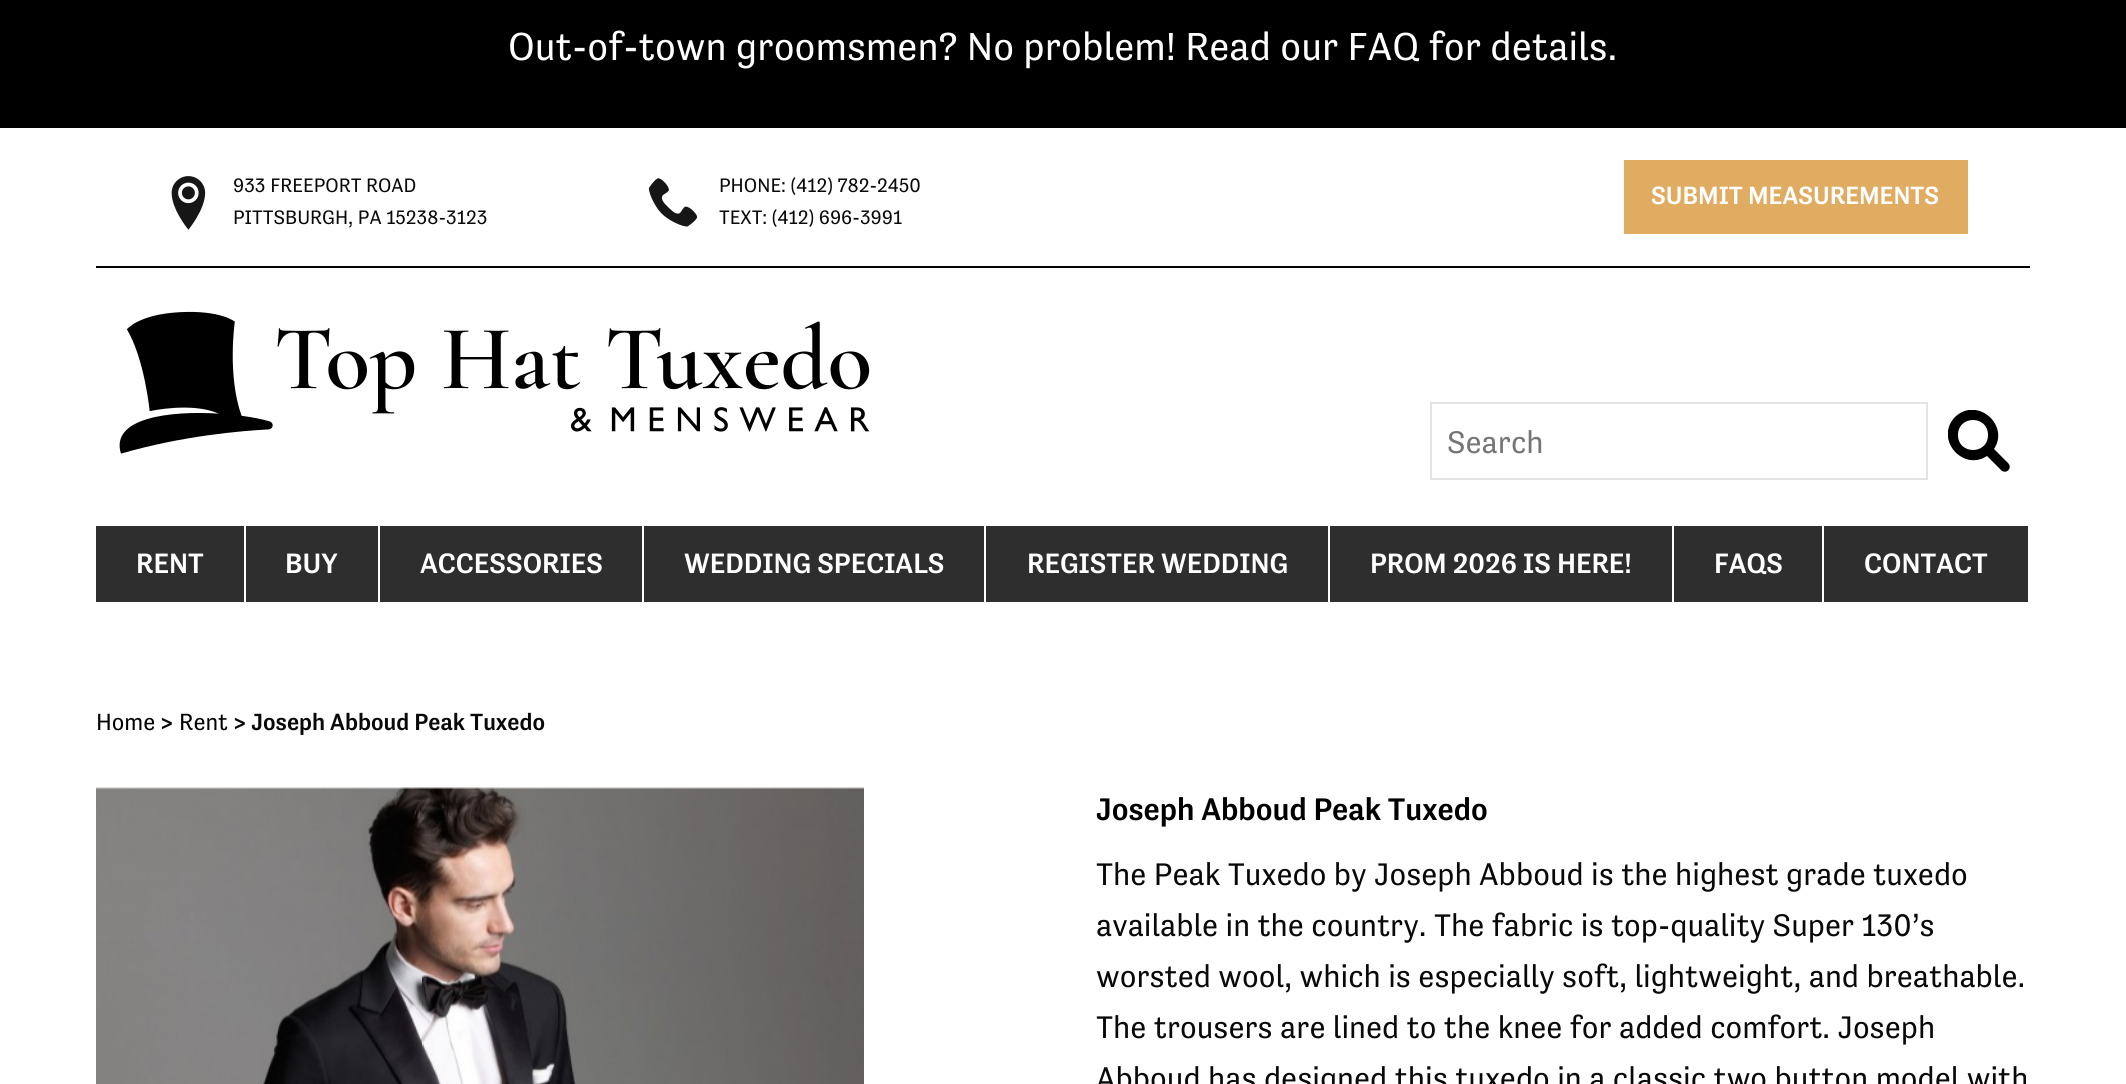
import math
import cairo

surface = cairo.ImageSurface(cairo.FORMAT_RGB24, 2126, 1084)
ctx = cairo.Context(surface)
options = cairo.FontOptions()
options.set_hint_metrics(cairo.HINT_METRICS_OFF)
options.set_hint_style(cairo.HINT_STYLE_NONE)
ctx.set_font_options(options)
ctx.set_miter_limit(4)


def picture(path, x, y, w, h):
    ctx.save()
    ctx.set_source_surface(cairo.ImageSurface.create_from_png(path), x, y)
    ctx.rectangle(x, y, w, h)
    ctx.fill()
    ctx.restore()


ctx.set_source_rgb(1, 1, 1)
ctx.paint()
ctx.set_source_rgb(0, 0, 0)
ctx.rectangle(0, 0, 2126, 128)
ctx.fill()
ctx.select_font_face("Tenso")
ctx.set_font_size(40)
ctx.set_source_rgb(1, 1, 1)
ctx.move_to(508, 60)
ctx.show_text("Out-of-town groomsmen? No problem! Read our FAQ for details.")
ctx.set_source_rgb(0, 0, 0)
ctx.rectangle(96, 266, 1934, 2)
ctx.fill()
picture("img1.png", 171, 176, 35, 54)
ctx.set_font_size(20)
ctx.set_source_rgb(0.039, 0.039, 0.039)
ctx.move_to(233, 192)
ctx.show_text("933 FREEPORT ROAD")
ctx.move_to(233, 224)
ctx.show_text("PITTSBURGH, PA 15238-3123")
picture("img2.png", 648, 178, 50, 49)
ctx.move_to(719, 192)
ctx.show_text("PHONE: (412) 782-2450")
ctx.move_to(719, 224)
ctx.show_text("TEXT: (412) 696-3991")
ctx.set_source_rgb(0.878, 0.675, 0.38)
ctx.rectangle(1624, 160, 344, 74)
ctx.fill()
ctx.select_font_face("Tenso Medium")
ctx.set_font_size(25.6)
ctx.set_source_rgb(1, 1, 1)
ctx.move_to(1651, 204)
ctx.show_text("SUBMIT MEASUREMENTS")
picture("img3.png", 119, 311, 751, 143)
ctx.rectangle(1431, 403, 496, 76)
ctx.set_source_rgb(0.89, 0.89, 0.89)
ctx.stroke()
ctx.select_font_face("Tenso")
ctx.set_font_size(32)
ctx.set_source_rgb(0.459, 0.459, 0.459)
ctx.move_to(1447, 453)
ctx.show_text("Search")
ctx.save()
ctx.rectangle(1948, 410, 62, 62)
ctx.clip()
ctx.set_source_rgb(0, 0, 0)
ctx.new_path()
ctx.move_to(2008, 463)
ctx.line_to(1994, 449)
ctx.curve_to(2010, 425, 1977, 396, 1955, 417)
ctx.curve_to(1934, 439, 1963, 472, 1987, 456)
ctx.line_to(2001, 470)
ctx.curve_to(2006, 475, 2013, 468, 2008, 463)
ctx.close_path()
ctx.move_to(1958, 435)
ctx.curve_to(1958, 415, 1988, 415, 1988, 435)
ctx.curve_to(1988, 455, 1958, 455, 1958, 435)
ctx.close_path()
ctx.fill()
ctx.restore()
ctx.set_source_rgb(0.18, 0.18, 0.18)
ctx.rectangle(96, 526, 148, 76)
ctx.fill()
ctx.select_font_face("Tenso Medium")
ctx.set_font_size(28.75)
ctx.set_source_rgb(1, 1, 1)
ctx.move_to(136, 573)
ctx.show_text("RENT")
ctx.set_source_rgb(0.18, 0.18, 0.18)
ctx.rectangle(246, 526, 132, 76)
ctx.fill()
ctx.set_source_rgb(1, 1, 1)
ctx.move_to(285, 573)
ctx.show_text("BUY")
ctx.set_source_rgb(0.18, 0.18, 0.18)
ctx.rectangle(380, 526, 262, 76)
ctx.fill()
ctx.set_source_rgb(1, 1, 1)
ctx.move_to(420, 573)
ctx.show_text("ACCESSORIES")
ctx.set_source_rgb(0.18, 0.18, 0.18)
ctx.rectangle(644, 526, 340, 76)
ctx.fill()
ctx.set_source_rgb(1, 1, 1)
ctx.move_to(684, 573)
ctx.show_text("WEDDING SPECIALS")
ctx.set_source_rgb(0.18, 0.18, 0.18)
ctx.rectangle(986, 526, 342, 76)
ctx.fill()
ctx.set_source_rgb(1, 1, 1)
ctx.move_to(1027, 573)
ctx.show_text("REGISTER WEDDING")
ctx.set_source_rgb(0.18, 0.18, 0.18)
ctx.rectangle(1330, 526, 342, 76)
ctx.fill()
ctx.set_source_rgb(1, 1, 1)
ctx.move_to(1370, 573)
ctx.show_text("PROM 2026 IS HERE!")
ctx.set_source_rgb(0.18, 0.18, 0.18)
ctx.rectangle(1674, 526, 148, 76)
ctx.fill()
ctx.set_source_rgb(1, 1, 1)
ctx.move_to(1714, 573)
ctx.show_text("FAQS")
ctx.set_source_rgb(0.18, 0.18, 0.18)
ctx.rectangle(1824, 526, 204, 76)
ctx.fill()
ctx.set_source_rgb(1, 1, 1)
ctx.move_to(1864, 573)
ctx.show_text("CONTACT")
ctx.select_font_face("Tenso")
ctx.set_font_size(24)
ctx.set_source_rgb(0, 0, 0)
ctx.move_to(96, 730)
ctx.show_text("Home")
ctx.select_font_face("Tenso Medium")
ctx.set_source_rgb(0.039, 0.039, 0.039)
ctx.move_to(160, 730)
ctx.show_text(">")
ctx.select_font_face("Tenso")
ctx.set_source_rgb(0, 0, 0)
ctx.move_to(179, 730)
ctx.show_text("Rent")
ctx.select_font_face("Tenso Medium")
ctx.set_source_rgb(0.039, 0.039, 0.039)
ctx.move_to(233, 730)
ctx.show_text("> Joseph Abboud Peak Tuxedo")
picture("img4.png", 96, 787, 768, 297)
ctx.set_font_size(32)
ctx.set_source_rgb(0, 0, 0)
ctx.move_to(1096, 820)
ctx.show_text("Joseph Abboud Peak Tuxedo")
ctx.select_font_face("Tenso")
ctx.set_source_rgb(0.039, 0.039, 0.039)
ctx.move_to(1096, 885)
ctx.show_text("The Peak Tuxedo by Joseph Abboud is the highest grade tuxedo")
ctx.move_to(1096, 936)
ctx.show_text("available in the country. The fabric is top-quality Super 130’s")
ctx.move_to(1096, 987)
ctx.show_text("worsted wool, which is especially soft, lightweight, and breathable.")
ctx.move_to(1096, 1038)
ctx.show_text("The trousers are lined to the knee for added comfort. Joseph")
ctx.move_to(1096, 1089)
ctx.show_text("Abboud has designed this tuxedo in a classic two button model with")
surface.write_to_png("page.png")
